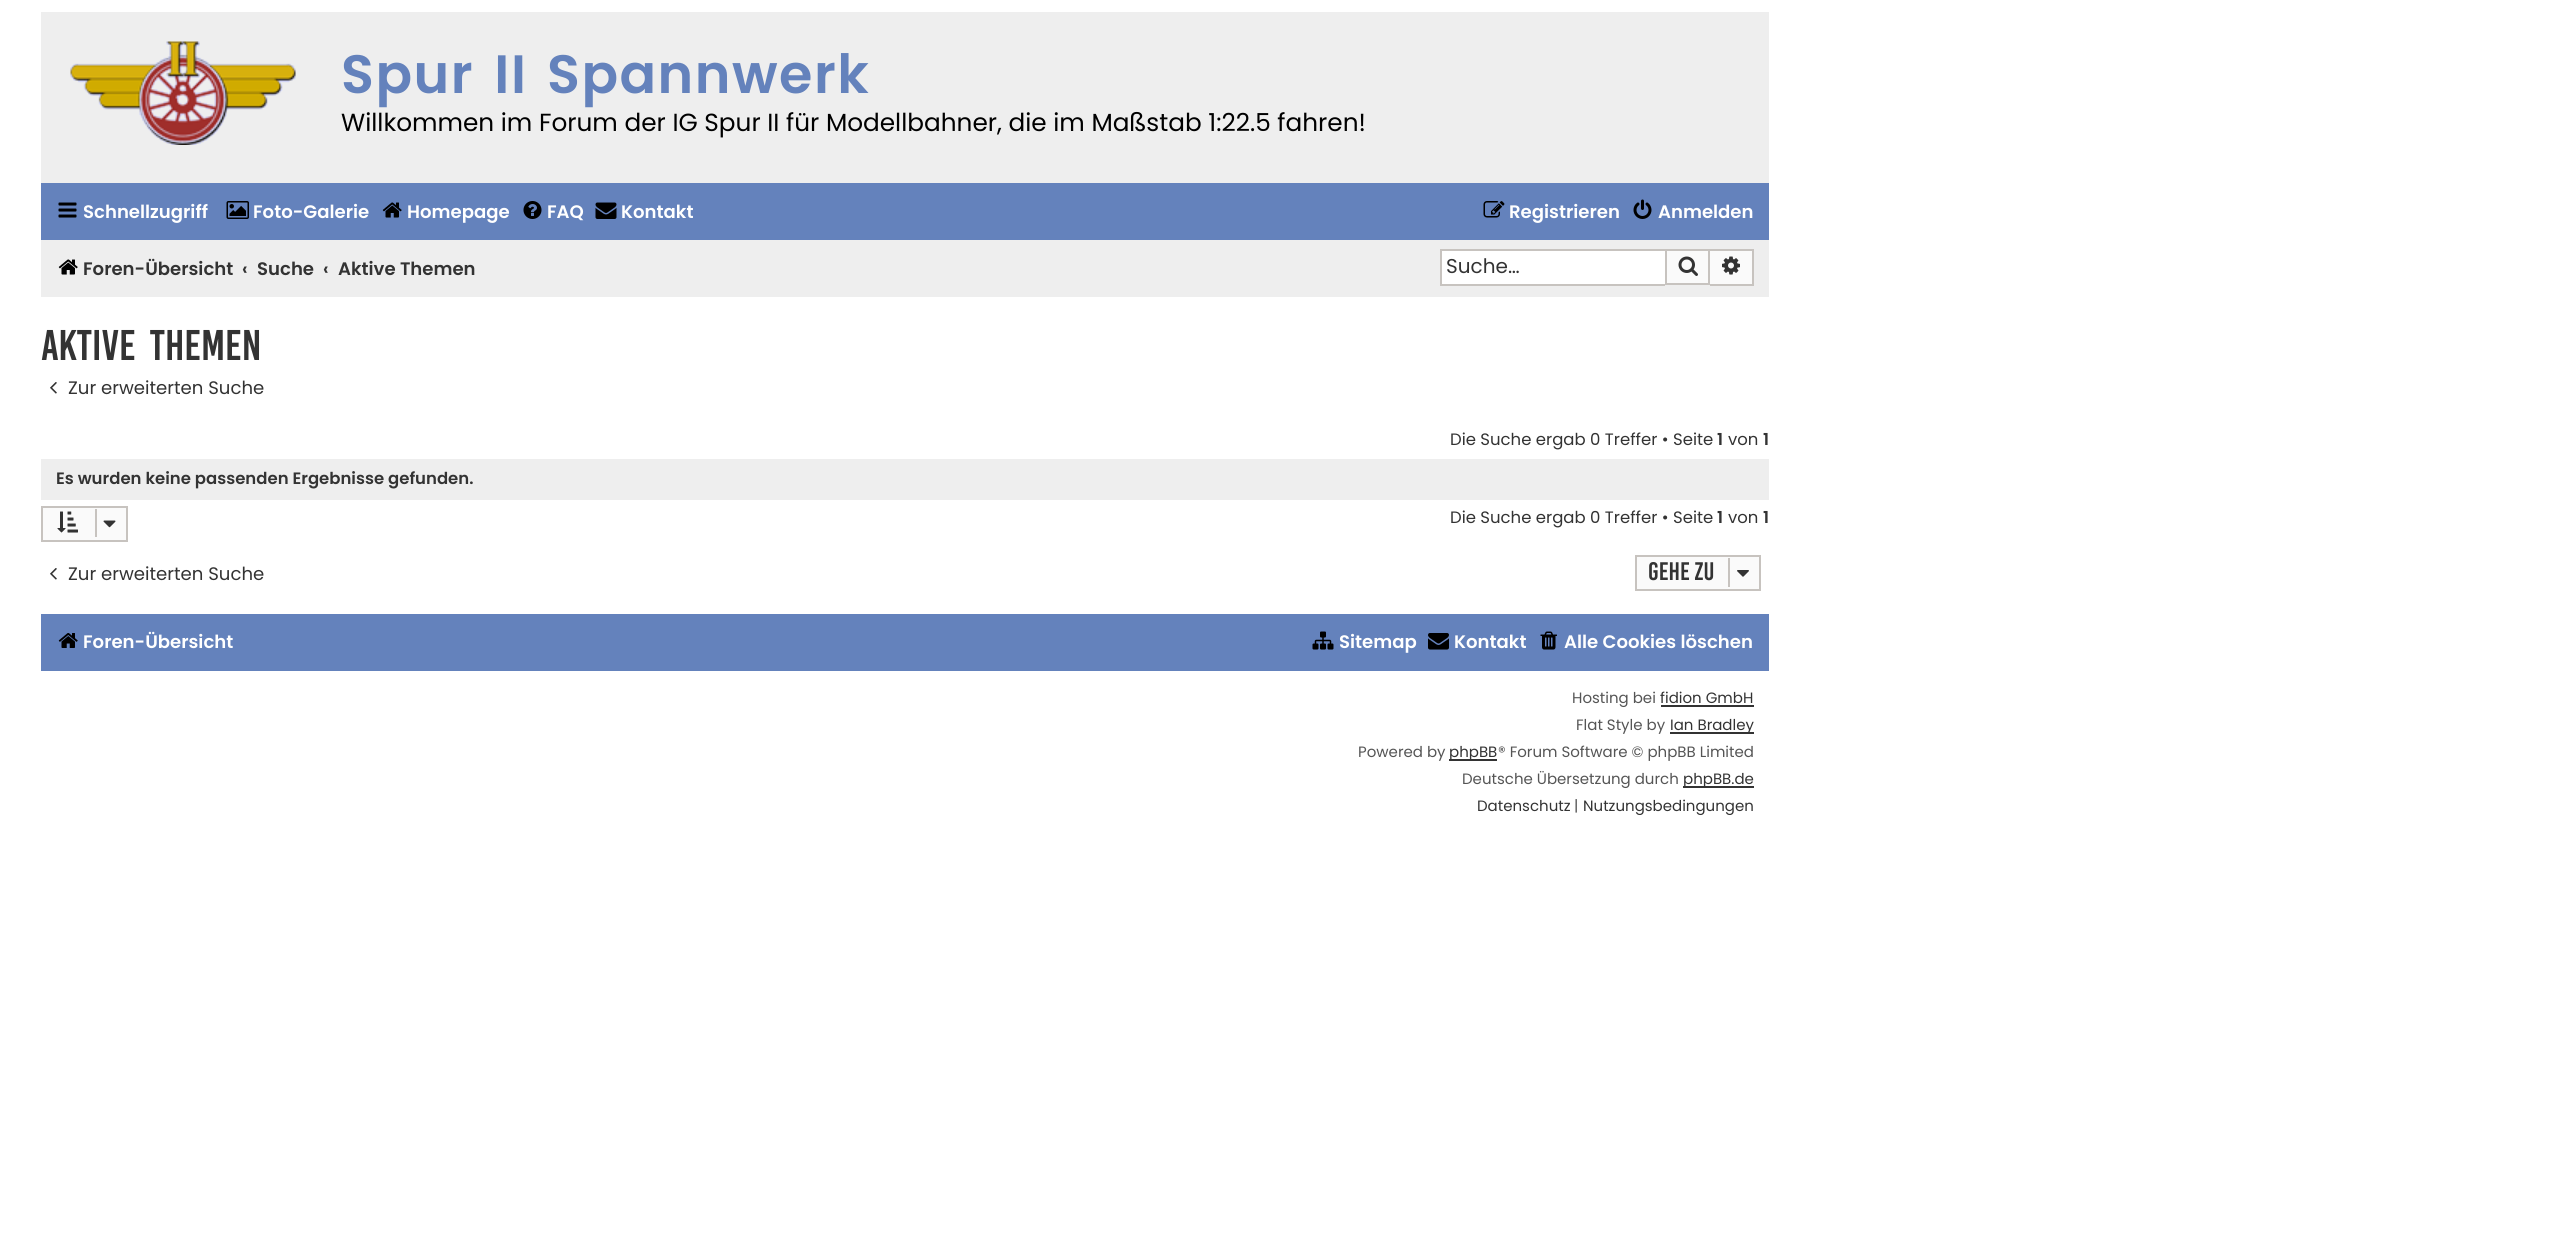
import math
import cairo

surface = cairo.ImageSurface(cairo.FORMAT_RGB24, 2564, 1235)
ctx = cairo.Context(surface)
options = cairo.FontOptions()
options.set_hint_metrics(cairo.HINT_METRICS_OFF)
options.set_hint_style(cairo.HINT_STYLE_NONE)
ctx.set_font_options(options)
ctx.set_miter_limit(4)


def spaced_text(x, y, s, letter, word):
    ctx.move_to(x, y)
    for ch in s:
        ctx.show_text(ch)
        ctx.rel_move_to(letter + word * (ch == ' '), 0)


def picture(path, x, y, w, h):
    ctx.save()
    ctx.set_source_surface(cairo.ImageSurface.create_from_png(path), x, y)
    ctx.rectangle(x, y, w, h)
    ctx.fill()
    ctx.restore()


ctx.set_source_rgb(1, 1, 1)
ctx.paint()
ctx.set_source_rgb(0.933, 0.933, 0.933)
ctx.rectangle(41, 12, 1728, 171)
ctx.fill()
picture("img1.png", 70, 41, 226, 104)
ctx.select_font_face("Poppins SemiBold")
ctx.set_font_size(54)
ctx.set_source_rgb(0.392, 0.51, 0.737)
spaced_text(341, 93, "Spur II", 1.5, 6)
spaced_text(547, 93, "Spannwerk", 1.5, 0)
ctx.select_font_face("Poppins")
ctx.set_font_size(24.75)
ctx.set_source_rgb(0, 0, 0)
ctx.move_to(341, 131)
ctx.show_text("Willkommen im Forum der IG Spur II für Modellbahner, die im Maßstab 1:22.5 fahren!")
ctx.set_source_rgb(0.392, 0.51, 0.737)
ctx.rectangle(41, 183, 1728, 57)
ctx.fill()
picture("img2.png", 58, 202, 19, 16)
ctx.select_font_face("Poppins SemiBold")
ctx.set_font_size(18.1)
ctx.set_source_rgb(1, 1, 1)
ctx.move_to(83, 218)
ctx.show_text("Schnellzugriff")
picture("img3.png", 226, 201, 23, 18)
ctx.move_to(253, 218)
ctx.show_text("Foto-Galerie")
picture("img4.png", 382, 202, 20, 16)
ctx.move_to(407, 218)
ctx.show_text("Homepage")
picture("img5.png", 523, 201, 19, 18)
ctx.move_to(547, 218)
ctx.show_text("FAQ")
picture("img6.png", 595, 202, 22, 17)
ctx.move_to(621, 218)
ctx.show_text("Kontakt")
picture("img7.png", 1483, 201, 22, 17)
ctx.move_to(1509, 218)
ctx.show_text("Registrieren")
picture("img8.png", 1633, 199, 19, 20)
ctx.move_to(1658, 218)
ctx.show_text("Anmelden")
ctx.set_source_rgb(0.933, 0.933, 0.933)
ctx.rectangle(41, 240, 1728, 57)
ctx.fill()
picture("img9.png", 58, 259, 20, 16)
ctx.set_source_rgb(0.2, 0.2, 0.2)
ctx.move_to(83, 275)
ctx.show_text("Foren-Übersicht")
ctx.move_to(242, 275)
ctx.show_text("‹")
ctx.move_to(257, 275)
ctx.show_text("Suche")
ctx.move_to(323, 275)
ctx.show_text("‹")
ctx.move_to(338, 275)
ctx.show_text("Aktive Themen")
ctx.set_source_rgb(1, 1, 1)
ctx.rectangle(1442, 251, 223, 33)
ctx.fill()
ctx.set_source_rgb(0.78, 0.765, 0.749)
ctx.rectangle(1440, 249, 225, 2)
ctx.fill()
ctx.rectangle(1440, 284, 225, 2)
ctx.fill()
ctx.rectangle(1440, 249, 2, 36)
ctx.fill()
ctx.select_font_face("Poppins")
ctx.set_font_size(20)
ctx.set_source_rgb(0.2, 0.2, 0.2)
ctx.move_to(1446, 273)
ctx.show_text("Suche…")
ctx.set_source_rgb(0.98, 0.98, 0.98)
ctx.rectangle(1666, 250, 43, 34)
ctx.fill_preserve()
ctx.set_source_rgb(0.78, 0.765, 0.749)
ctx.stroke()
picture("img10.png", 1678, 256, 20, 20)
ctx.set_source_rgb(0.98, 0.98, 0.98)
ctx.rectangle(1710, 251, 42, 33)
ctx.fill()
ctx.set_source_rgb(0.78, 0.765, 0.749)
ctx.rectangle(1710, 249, 44, 2)
ctx.fill()
ctx.rectangle(1752, 249, 2, 36)
ctx.fill()
ctx.rectangle(1710, 284, 44, 2)
ctx.fill()
picture("img11.png", 1722, 256, 18, 19)
ctx.select_font_face("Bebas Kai")
ctx.set_font_size(33)
ctx.set_source_rgb(0.2, 0.2, 0.2)
spaced_text(41, 360, "Aktive Themen", 0, 6)
picture("img12.png", 50, 382, 7, 12)
ctx.select_font_face("Poppins")
ctx.set_font_size(18.1)
ctx.move_to(68, 394)
ctx.show_text("Zur erweiterten Suche")
ctx.set_font_size(16.5)
ctx.move_to(1450, 445)
ctx.show_text("Die Suche ergab 0 Treffer • Seite")
ctx.select_font_face("Poppins SemiBold")
ctx.move_to(1717, 445)
ctx.show_text("1")
ctx.select_font_face("Poppins")
ctx.move_to(1728, 445)
ctx.show_text("von")
ctx.select_font_face("Poppins SemiBold")
ctx.move_to(1763, 445)
ctx.show_text("1")
ctx.set_source_rgb(0.933, 0.933, 0.933)
ctx.rectangle(41, 459, 1728, 41)
ctx.fill()
ctx.set_source_rgb(0.2, 0.2, 0.2)
ctx.move_to(56, 484)
ctx.show_text("Es wurden keine passenden Ergebnisse gefunden.")
ctx.set_source_rgb(0.98, 0.98, 0.98)
ctx.rectangle(42, 507, 85, 34)
ctx.fill_preserve()
ctx.set_source_rgb(0.78, 0.765, 0.749)
ctx.stroke()
picture("img13.png", 57, 511, 21, 22)
ctx.rectangle(95, 509, 2, 28)
ctx.fill()
picture("img14.png", 103, 520, 13, 8)
ctx.select_font_face("Poppins")
ctx.set_source_rgb(0.2, 0.2, 0.2)
ctx.move_to(1450, 523)
ctx.show_text("Die Suche ergab 0 Treffer • Seite")
ctx.select_font_face("Poppins SemiBold")
ctx.move_to(1717, 523)
ctx.show_text("1")
ctx.select_font_face("Poppins")
ctx.move_to(1728, 523)
ctx.show_text("von")
ctx.select_font_face("Poppins SemiBold")
ctx.move_to(1763, 523)
ctx.show_text("1")
picture("img12.png", 50, 568, 7, 12)
ctx.select_font_face("Poppins")
ctx.set_font_size(18.1)
ctx.move_to(68, 580)
ctx.show_text("Zur erweiterten Suche")
ctx.set_source_rgb(0.98, 0.98, 0.98)
ctx.rectangle(1636, 556, 124, 34)
ctx.fill_preserve()
ctx.set_source_rgb(0.78, 0.765, 0.749)
ctx.stroke()
ctx.select_font_face("Bebas Kai")
ctx.set_font_size(19.5)
ctx.set_source_rgb(0.2, 0.2, 0.2)
ctx.move_to(1648, 580)
ctx.show_text("Gehe zu")
ctx.set_source_rgb(0.78, 0.765, 0.749)
ctx.rectangle(1728, 558, 2, 29)
ctx.fill()
picture("img15.png", 1737, 570, 12, 7)
ctx.set_source_rgb(0.392, 0.51, 0.737)
ctx.rectangle(41, 614, 1728, 57)
ctx.fill()
picture("img16.png", 58, 633, 20, 15)
ctx.select_font_face("Poppins SemiBold")
ctx.set_font_size(18.1)
ctx.set_source_rgb(1, 1, 1)
ctx.move_to(83, 648)
ctx.show_text("Foren-Übersicht")
picture("img17.png", 1312, 631, 22, 19)
ctx.move_to(1339, 648)
ctx.show_text("Sitemap")
picture("img18.png", 1428, 633, 21, 17)
ctx.move_to(1454, 648)
ctx.show_text("Kontakt")
picture("img19.png", 1540, 631, 17, 19)
ctx.move_to(1564, 648)
ctx.show_text("Alle Cookies löschen")
ctx.select_font_face("Poppins")
ctx.set_font_size(15)
ctx.set_source_rgb(0.333, 0.333, 0.333)
ctx.move_to(1572, 703)
ctx.show_text("Hosting bei")
ctx.set_source_rgb(0.2, 0.2, 0.2)
ctx.move_to(1660, 703)
ctx.show_text("fidion GmbH")
ctx.rectangle(1661, 705, 93, 2)
ctx.fill()
ctx.set_source_rgb(0.333, 0.333, 0.333)
ctx.move_to(1576, 730)
ctx.show_text("Flat Style by")
ctx.set_source_rgb(0.2, 0.2, 0.2)
ctx.rectangle(1670, 732, 84, 2)
ctx.fill()
ctx.move_to(1670, 730)
ctx.show_text("Ian Bradley")
ctx.set_source_rgb(0.333, 0.333, 0.333)
ctx.move_to(1358, 757)
ctx.show_text("Powered by")
ctx.set_source_rgb(0.2, 0.2, 0.2)
ctx.rectangle(1449, 759, 48, 2)
ctx.fill()
ctx.move_to(1449, 757)
ctx.show_text("phpBB")
ctx.set_source_rgb(0.333, 0.333, 0.333)
ctx.move_to(1498, 757)
ctx.show_text("® Forum Software © phpBB Limited")
ctx.move_to(1462, 784)
ctx.show_text("Deutsche Übersetzung durch")
ctx.set_source_rgb(0.2, 0.2, 0.2)
ctx.rectangle(1683, 786, 71, 2)
ctx.fill()
ctx.move_to(1683, 784)
ctx.show_text("phpBB.de")
ctx.move_to(1477, 811)
ctx.show_text("Datenschutz")
ctx.set_source_rgb(0.333, 0.333, 0.333)
ctx.move_to(1574, 811)
ctx.show_text("|")
ctx.set_source_rgb(0.2, 0.2, 0.2)
ctx.move_to(1583, 811)
ctx.show_text("Nutzungsbedingungen")
surface.write_to_png("page.png")
